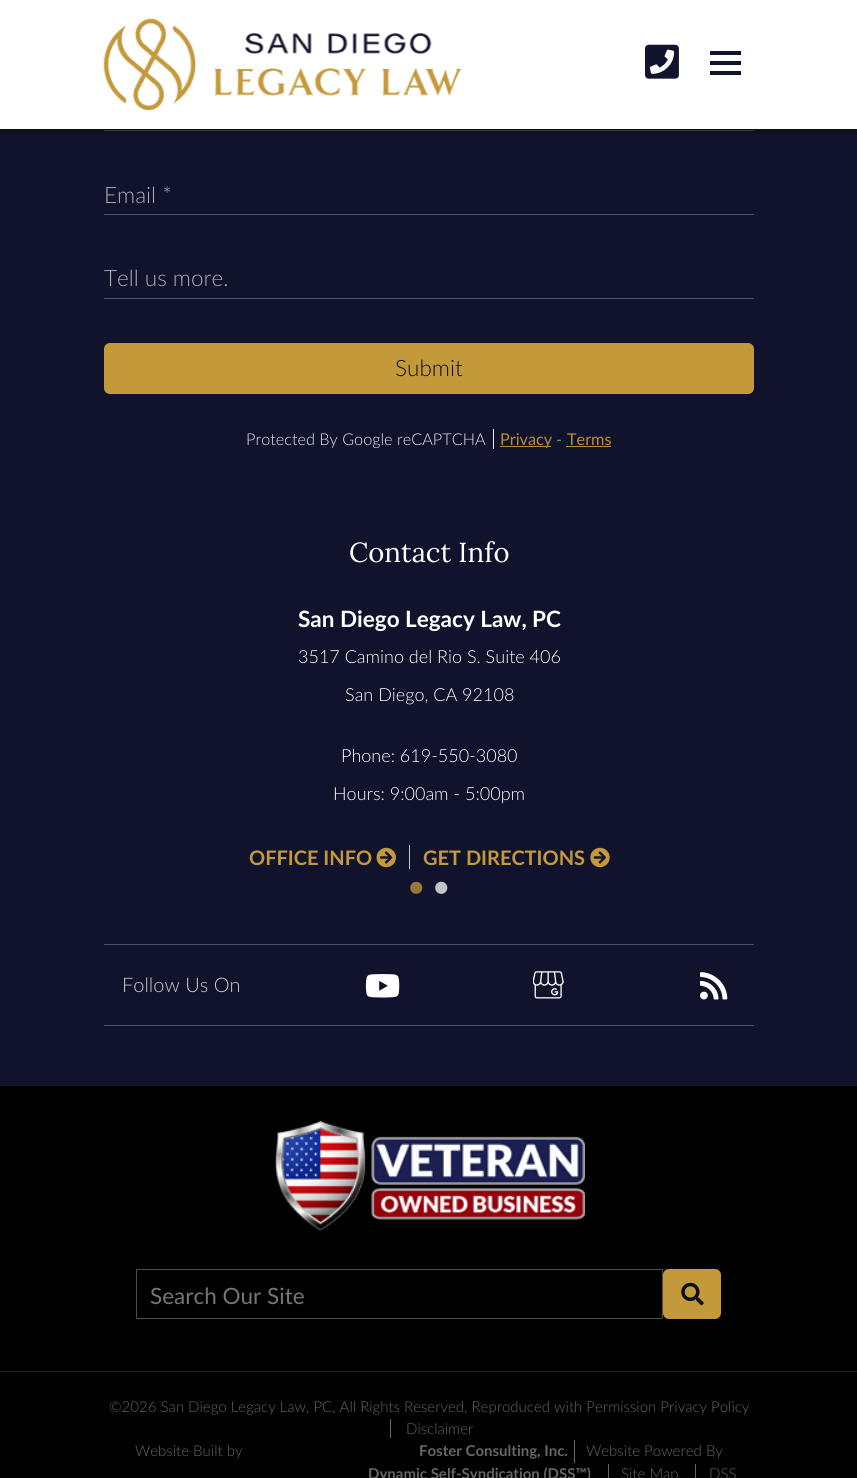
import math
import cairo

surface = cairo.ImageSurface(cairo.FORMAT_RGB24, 857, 1478)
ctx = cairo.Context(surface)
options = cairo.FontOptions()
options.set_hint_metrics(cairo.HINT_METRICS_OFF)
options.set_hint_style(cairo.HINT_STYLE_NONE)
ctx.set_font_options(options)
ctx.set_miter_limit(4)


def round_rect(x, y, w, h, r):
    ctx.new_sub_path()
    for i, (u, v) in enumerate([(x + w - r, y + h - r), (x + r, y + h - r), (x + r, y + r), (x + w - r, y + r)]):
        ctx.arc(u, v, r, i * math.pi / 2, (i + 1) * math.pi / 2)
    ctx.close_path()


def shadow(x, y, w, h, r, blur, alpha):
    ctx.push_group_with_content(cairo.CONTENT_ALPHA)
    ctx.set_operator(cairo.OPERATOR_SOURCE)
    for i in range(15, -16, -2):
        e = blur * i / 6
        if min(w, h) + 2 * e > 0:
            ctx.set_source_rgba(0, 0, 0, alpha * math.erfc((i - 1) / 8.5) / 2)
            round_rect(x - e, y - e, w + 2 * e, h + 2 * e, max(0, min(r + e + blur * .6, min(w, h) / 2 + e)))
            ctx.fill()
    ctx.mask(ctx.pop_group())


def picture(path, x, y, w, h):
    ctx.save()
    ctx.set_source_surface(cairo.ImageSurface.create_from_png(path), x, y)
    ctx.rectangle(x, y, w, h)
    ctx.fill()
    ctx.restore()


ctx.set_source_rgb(0.067, 0.078, 0.173)
ctx.paint()
ctx.set_source_rgb(0.302, 0.31, 0.38)
ctx.rectangle(104, 130, 650, 1)
ctx.fill()
ctx.set_source_rgb(0, 0, 0)
shadow(0, 4, 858, 129, 0, 2, 0.3)
ctx.set_source_rgb(1, 1, 1)
ctx.rectangle(0, 0, 857, 129)
ctx.fill()
picture("img1.png", 103, 18, 359, 92)
picture("img2.png", 645, 44, 34, 35)
ctx.set_source_rgb(0.067, 0.078, 0.173)
ctx.rectangle(710, 51, 31, 4)
ctx.fill()
ctx.rectangle(710, 61, 31, 4)
ctx.fill()
ctx.rectangle(710, 71, 31, 4)
ctx.fill()
ctx.set_source_rgb(0.302, 0.31, 0.38)
ctx.rectangle(104, 214, 650, 1)
ctx.fill()
ctx.select_font_face("Lato Light")
ctx.set_font_size(22.5)
ctx.set_source_rgb(0.675, 0.678, 0.71)
ctx.move_to(104, 203)
ctx.show_text("Email *")
ctx.set_source_rgb(0.302, 0.31, 0.38)
ctx.rectangle(104, 298, 650, 1)
ctx.fill()
ctx.set_source_rgb(0.675, 0.678, 0.71)
ctx.move_to(104, 286)
ctx.show_text("Tell us more.")
ctx.set_source_rgb(0.769, 0.6, 0.227)
round_rect(104, 343, 650, 51, 6)
ctx.fill()
ctx.set_source_rgb(0.047, 0.051, 0.114)
ctx.move_to(395, 376)
ctx.show_text("Submit")
ctx.set_font_size(16.25)
ctx.set_source_rgb(0.906, 0.91, 0.918)
ctx.move_to(246, 445)
ctx.show_text("Protected By Google reCAPTCHA")
ctx.rectangle(493, 429, 1, 20)
ctx.fill()
ctx.set_source_rgb(0.698, 0.549, 0.224)
ctx.rectangle(500, 446, 51, 1)
ctx.fill()
ctx.select_font_face("Lato")
ctx.move_to(500, 445)
ctx.show_text("Privacy")
ctx.select_font_face("Lato Light")
ctx.set_source_rgb(0.906, 0.91, 0.918)
ctx.move_to(556, 445)
ctx.show_text("-")
ctx.select_font_face("Lato")
ctx.set_source_rgb(0.698, 0.549, 0.224)
ctx.move_to(567, 445)
ctx.show_text("Terms")
ctx.rectangle(566, 446, 45, 1)
ctx.fill()
ctx.select_font_face("Lora")
ctx.set_font_size(27.5)
ctx.set_source_rgb(1, 1, 1)
ctx.move_to(349, 562)
ctx.show_text("Contact Info")
ctx.select_font_face("Lato", cairo.FONT_SLANT_NORMAL, cairo.FONT_WEIGHT_BOLD)
ctx.set_font_size(22.5)
ctx.move_to(298, 627)
ctx.show_text("San Diego Legacy Law, PC")
ctx.select_font_face("Lato Light")
ctx.set_font_size(18)
ctx.move_to(298, 663)
ctx.show_text("3517 Camino del Rio S. Suite 406")
ctx.move_to(345, 701)
ctx.show_text("San Diego, CA 92108")
ctx.move_to(341, 762)
ctx.show_text("Phone: 619-550-3080")
ctx.move_to(333, 800)
ctx.show_text("Hours: 9:00am - 5:00pm")
ctx.select_font_face("Lato", cairo.FONT_SLANT_NORMAL, cairo.FONT_WEIGHT_BOLD)
ctx.set_font_size(20)
ctx.set_source_rgb(0.769, 0.6, 0.227)
ctx.move_to(249, 865)
ctx.show_text("OFFICE INFO")
picture("img3.png", 376, 847, 20, 21)
ctx.set_source_rgb(0.769, 0.769, 0.792)
ctx.rectangle(409, 845, 1, 24)
ctx.fill()
ctx.set_source_rgb(0.769, 0.6, 0.227)
ctx.move_to(423, 865)
ctx.show_text("GET DIRECTIONS")
picture("img4.png", 590, 847, 20, 21)
picture("img5.png", 410, 881, 13, 13)
picture("img6.png", 435, 881, 13, 13)
ctx.set_source_rgb(0.302, 0.31, 0.38)
ctx.rectangle(104, 944, 650, 1)
ctx.fill()
ctx.rectangle(104, 1025, 650, 1)
ctx.fill()
ctx.select_font_face("Lato Light")
ctx.set_source_rgb(0.8, 0.8, 0.8)
ctx.move_to(122, 992)
ctx.show_text("Follow Us On")
picture("img7.png", 365, 974, 35, 24)
picture("img8.png", 533, 971, 31, 28)
picture("img9.png", 700, 972, 28, 28)
ctx.set_source_rgb(0, 0, 0)
ctx.rectangle(0, 1086, 857, 285)
ctx.fill()
picture("img10.png", 275, 1120, 310, 111)
ctx.rectangle(136.5, 1269.5, 526, 49)
ctx.set_source_rgb(0.302, 0.302, 0.302)
ctx.set_line_width(1)
ctx.stroke()
ctx.select_font_face("Lato")
ctx.set_font_size(22.5)
ctx.set_source_rgb(0.459, 0.459, 0.459)
ctx.move_to(150, 1304)
ctx.show_text("Search Our Site")
ctx.set_source_rgb(0.769, 0.6, 0.227)
round_rect(663, 1269, 58, 50, 6)
ctx.fill()
picture("img11.png", 681, 1282, 23, 24)
ctx.set_source_rgb(0, 0, 0)
ctx.rectangle(0, 1372, 857, 106)
ctx.fill()
ctx.set_source_rgb(0.102, 0.102, 0.102)
ctx.rectangle(0, 1371, 857, 1)
ctx.fill()
ctx.select_font_face("Lato Light")
ctx.set_font_size(15)
ctx.set_source_rgb(0.4, 0.4, 0.4)
ctx.move_to(109, 1412)
ctx.show_text("©2026 San Diego Legacy Law, PC, All Rights Reserved, Reproduced with Permission Privacy Policy")
ctx.rectangle(390, 1419, 1, 19)
ctx.fill()
ctx.move_to(406, 1434)
ctx.show_text("Disclaimer")
ctx.move_to(135, 1456)
ctx.show_text("Website Built by")
ctx.select_font_face("Lato", cairo.FONT_SLANT_NORMAL, cairo.FONT_WEIGHT_BOLD)
ctx.move_to(419, 1456)
ctx.show_text("Foster Consulting, Inc.")
ctx.rectangle(574, 1440, 1, 23)
ctx.fill()
ctx.select_font_face("Lato Light")
ctx.move_to(586, 1456)
ctx.show_text("Website Powered By")
ctx.select_font_face("Lato", cairo.FONT_SLANT_NORMAL, cairo.FONT_WEIGHT_BOLD)
ctx.move_to(368, 1479)
ctx.show_text("Dynamic Self-Syndication (DSS™)")
ctx.select_font_face("Lato Light")
ctx.move_to(621, 1479)
ctx.show_text("Site Map")
ctx.rectangle(608, 1464, 1, 14)
ctx.fill()
ctx.move_to(709, 1479)
ctx.show_text("DSS")
ctx.rectangle(695, 1464, 1, 14)
ctx.fill()
surface.write_to_png("page.png")
